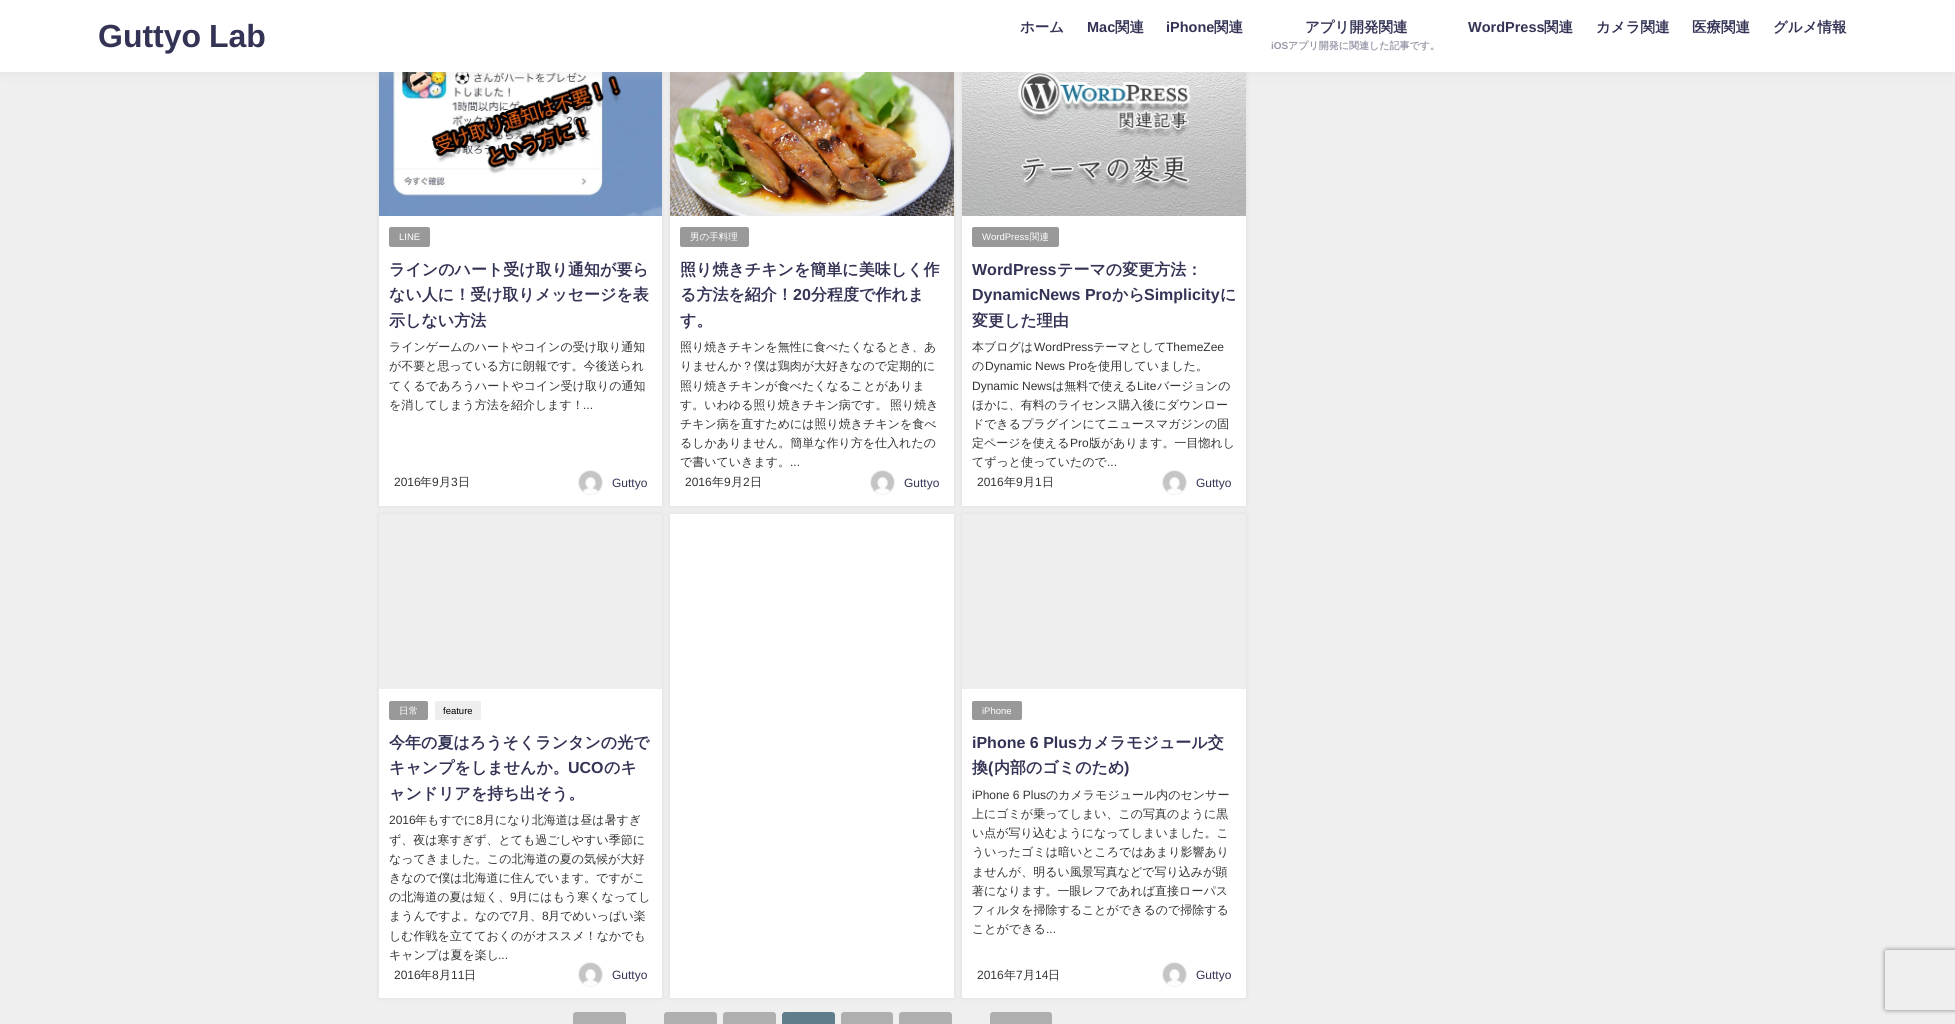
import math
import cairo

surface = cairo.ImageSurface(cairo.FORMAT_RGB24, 1955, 1024)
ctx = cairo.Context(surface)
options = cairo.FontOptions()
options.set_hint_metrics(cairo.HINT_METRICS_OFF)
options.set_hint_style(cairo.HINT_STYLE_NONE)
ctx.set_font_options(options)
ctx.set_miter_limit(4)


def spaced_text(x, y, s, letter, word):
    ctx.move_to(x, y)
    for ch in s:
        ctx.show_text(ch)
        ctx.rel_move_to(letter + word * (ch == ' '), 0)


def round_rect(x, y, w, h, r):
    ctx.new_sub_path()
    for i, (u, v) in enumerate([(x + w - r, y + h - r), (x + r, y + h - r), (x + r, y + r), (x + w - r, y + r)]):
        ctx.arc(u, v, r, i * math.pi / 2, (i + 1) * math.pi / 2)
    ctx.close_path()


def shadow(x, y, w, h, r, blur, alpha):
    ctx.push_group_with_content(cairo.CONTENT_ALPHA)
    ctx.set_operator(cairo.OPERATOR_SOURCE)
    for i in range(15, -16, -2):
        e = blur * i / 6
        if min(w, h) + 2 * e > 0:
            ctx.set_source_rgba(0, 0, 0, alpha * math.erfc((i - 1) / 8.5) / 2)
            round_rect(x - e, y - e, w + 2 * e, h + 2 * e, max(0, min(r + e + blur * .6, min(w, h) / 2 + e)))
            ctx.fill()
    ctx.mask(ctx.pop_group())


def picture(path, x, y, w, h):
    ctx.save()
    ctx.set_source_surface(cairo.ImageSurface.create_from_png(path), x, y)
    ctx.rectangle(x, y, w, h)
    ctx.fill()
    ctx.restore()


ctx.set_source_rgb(0.937, 0.937, 0.937)
ctx.paint()
ctx.set_source_rgb(0.588, 0.588, 0.588)
shadow(379, 40, 283, 466, 0, 2.5, 0.2)
picture("img1.png", 379, 72, 283, 144)
ctx.set_source_rgb(1, 1, 1)
ctx.rectangle(379, 216, 283, 290)
ctx.fill()
ctx.set_source_rgb(0.588, 0.588, 0.588)
shadow(670, 40, 284, 466, 0, 2.5, 0.2)
picture("img3.png", 670, 72, 284, 144)
ctx.set_source_rgb(1, 1, 1)
ctx.rectangle(670, 216, 284, 290)
ctx.fill()
ctx.set_source_rgb(0.588, 0.588, 0.588)
shadow(962, 40, 284, 466, 0, 2.5, 0.2)
picture("img5.png", 962, 72, 284, 144)
ctx.set_source_rgb(0.784, 0.784, 0.784)
shadow(0, 3, 1955, 72, 0, 5, 0.2)
ctx.set_source_rgb(1, 1, 1)
ctx.rectangle(0, 0, 1955, 72)
ctx.fill()
ctx.select_font_face("Liberation Sans", cairo.FONT_SLANT_NORMAL, cairo.FONT_WEIGHT_BOLD)
ctx.set_font_size(32)
ctx.set_source_rgb(0.2, 0.2, 0.333)
spaced_text(98, 47, "Guttyo Lab", 0, -1)
ctx.select_font_face("WenQuanYi Zen Hei", cairo.FONT_SLANT_NORMAL, cairo.FONT_WEIGHT_BOLD)
ctx.set_font_size(14.5)
ctx.move_to(1020, 32)
ctx.show_text("ホーム")
ctx.select_font_face("Liberation Sans", cairo.FONT_SLANT_NORMAL, cairo.FONT_WEIGHT_BOLD)
ctx.move_to(1087, 32)
ctx.show_text("Mac")
ctx.select_font_face("WenQuanYi Zen Hei", cairo.FONT_SLANT_NORMAL, cairo.FONT_WEIGHT_BOLD)
ctx.move_to(1115, 32)
ctx.show_text("関連")
ctx.select_font_face("Liberation Sans", cairo.FONT_SLANT_NORMAL, cairo.FONT_WEIGHT_BOLD)
ctx.move_to(1166, 32)
ctx.show_text("iPhone")
ctx.select_font_face("WenQuanYi Zen Hei", cairo.FONT_SLANT_NORMAL, cairo.FONT_WEIGHT_BOLD)
ctx.move_to(1214, 32)
ctx.show_text("関連")
ctx.move_to(1305, 32)
ctx.show_text("アプリ開発関連")
ctx.select_font_face("Liberation Sans", cairo.FONT_SLANT_NORMAL, cairo.FONT_WEIGHT_BOLD)
ctx.set_font_size(10)
ctx.set_source_rgb(0.6, 0.6, 0.667)
ctx.move_to(1271, 49)
ctx.show_text("iOS")
ctx.select_font_face("WenQuanYi Zen Hei", cairo.FONT_SLANT_NORMAL, cairo.FONT_WEIGHT_BOLD)
ctx.move_to(1288, 49)
ctx.show_text("アプリ開発に関連した記事です。")
ctx.select_font_face("Liberation Sans", cairo.FONT_SLANT_NORMAL, cairo.FONT_WEIGHT_BOLD)
ctx.set_font_size(14.5)
ctx.set_source_rgb(0.2, 0.2, 0.333)
ctx.move_to(1468, 32)
ctx.show_text("WordPress")
ctx.select_font_face("WenQuanYi Zen Hei", cairo.FONT_SLANT_NORMAL, cairo.FONT_WEIGHT_BOLD)
ctx.move_to(1544, 32)
ctx.show_text("関連")
ctx.move_to(1596, 32)
ctx.show_text("カメラ関連")
ctx.move_to(1692, 32)
ctx.show_text("医療関連")
ctx.move_to(1773, 32)
ctx.show_text("グルメ情報")
ctx.set_source_rgb(0.6, 0.6, 0.6)
round_rect(389, 227, 41, 20, 2)
ctx.fill()
ctx.select_font_face("Liberation Sans")
ctx.set_font_size(9.5)
ctx.set_source_rgb(1, 1, 1)
ctx.move_to(399, 240)
ctx.show_text("LINE")
ctx.select_font_face("WenQuanYi Zen Hei", cairo.FONT_SLANT_NORMAL, cairo.FONT_WEIGHT_BOLD)
ctx.set_font_size(16)
ctx.set_source_rgb(0.2, 0.2, 0.333)
ctx.move_to(389, 275)
ctx.show_text("ラインのハート受け取り通知が要ら")
ctx.move_to(389, 300)
ctx.show_text("ない人に！受け取りメッセージを表")
ctx.move_to(389, 326)
ctx.show_text("示しない方法")
ctx.select_font_face("WenQuanYi Zen Hei Medium")
ctx.set_font_size(12)
ctx.set_source_rgb(0.2, 0.2, 0.2)
ctx.move_to(389, 351)
ctx.show_text("ラインゲームのハートやコインの受け取り通知")
ctx.move_to(389, 370)
ctx.show_text("が不要と思っている方に朗報です。今後送られ")
ctx.move_to(389, 390)
ctx.show_text("てくるであろうハートやコイン受け取りの通知")
ctx.move_to(389, 409)
ctx.show_text("を消してしまう方法を紹介します！")
ctx.select_font_face("Liberation Sans")
ctx.move_to(583, 409)
ctx.show_text("...")
ctx.move_to(394, 486)
ctx.show_text("2016")
ctx.select_font_face("WenQuanYi Zen Hei Medium")
ctx.move_to(420, 486)
ctx.show_text("年")
ctx.select_font_face("Liberation Sans")
ctx.move_to(432, 486)
ctx.show_text("9")
ctx.select_font_face("WenQuanYi Zen Hei Medium")
ctx.move_to(439, 486)
ctx.show_text("月")
ctx.select_font_face("Liberation Sans")
ctx.move_to(451, 486)
ctx.show_text("3")
ctx.select_font_face("WenQuanYi Zen Hei Medium")
ctx.move_to(458, 486)
ctx.show_text("日")
ctx.new_path()
ctx.arc(590.5, 482.5, 12, 0, 2 * math.pi)
ctx.set_source_rgb(0.933, 0.933, 0.933)
ctx.set_line_width(1)
ctx.stroke()
picture("img2.png", 579, 471, 23, 23)
ctx.select_font_face("Liberation Sans")
ctx.set_source_rgb(0.2, 0.2, 0.333)
ctx.move_to(612, 487)
ctx.show_text("Guttyo")
ctx.set_source_rgb(0.6, 0.6, 0.6)
round_rect(680, 227, 69, 20, 2)
ctx.fill()
ctx.select_font_face("WenQuanYi Zen Hei Medium")
ctx.set_font_size(9.5)
ctx.set_source_rgb(1, 1, 1)
ctx.move_to(690, 240)
ctx.show_text("男の手料理")
ctx.select_font_face("WenQuanYi Zen Hei", cairo.FONT_SLANT_NORMAL, cairo.FONT_WEIGHT_BOLD)
ctx.set_font_size(16)
ctx.set_source_rgb(0.2, 0.2, 0.333)
ctx.move_to(680, 275)
ctx.show_text("照り焼きチキンを簡単に美味しく作")
ctx.move_to(680, 300)
ctx.show_text("る方法を紹介！")
ctx.select_font_face("Liberation Sans", cairo.FONT_SLANT_NORMAL, cairo.FONT_WEIGHT_BOLD)
ctx.move_to(793, 300)
ctx.show_text("20")
ctx.select_font_face("WenQuanYi Zen Hei", cairo.FONT_SLANT_NORMAL, cairo.FONT_WEIGHT_BOLD)
ctx.move_to(811, 300)
ctx.show_text("分程度で作れま")
ctx.move_to(680, 326)
ctx.show_text("す。")
ctx.select_font_face("WenQuanYi Zen Hei Medium")
ctx.set_font_size(12)
ctx.set_source_rgb(0.2, 0.2, 0.2)
ctx.move_to(680, 351)
ctx.show_text("照り焼きチキンを無性に食べたくなるとき、あ")
ctx.move_to(680, 370)
ctx.show_text("りませんか？僕は鶏肉が大好きなので定期的に")
ctx.move_to(680, 390)
ctx.show_text("照り焼きチキンが食べたくなることがありま")
spaced_text(680, 409, "す。いわゆる照り焼きチキン病です。 照り焼き", 0, -1)
ctx.move_to(680, 428)
ctx.show_text("チキン病を直すためには照り焼きチキンを食べ")
ctx.move_to(680, 447)
ctx.show_text("るしかありません。簡単な作り方を仕入れたの")
ctx.move_to(680, 466)
ctx.show_text("で書いていきます。")
ctx.select_font_face("Liberation Sans")
ctx.move_to(790, 466)
ctx.show_text("...")
ctx.move_to(685, 486)
ctx.show_text("2016")
ctx.select_font_face("WenQuanYi Zen Hei Medium")
ctx.move_to(712, 486)
ctx.show_text("年")
ctx.select_font_face("Liberation Sans")
ctx.move_to(724, 486)
ctx.show_text("9")
ctx.select_font_face("WenQuanYi Zen Hei Medium")
ctx.move_to(731, 486)
ctx.show_text("月")
ctx.select_font_face("Liberation Sans")
ctx.move_to(743, 486)
ctx.show_text("2")
ctx.select_font_face("WenQuanYi Zen Hei Medium")
ctx.move_to(750, 486)
ctx.show_text("日")
ctx.new_path()
ctx.arc(882.5, 482.5, 12, 0, 2 * math.pi)
ctx.set_source_rgb(0.933, 0.933, 0.933)
ctx.stroke()
picture("img4.png", 871, 471, 23, 23)
ctx.select_font_face("Liberation Sans")
ctx.set_source_rgb(0.2, 0.2, 0.333)
ctx.move_to(904, 487)
ctx.show_text("Guttyo")
ctx.set_source_rgb(1, 1, 1)
ctx.rectangle(962, 216, 284, 290)
ctx.fill()
ctx.set_source_rgb(0.6, 0.6, 0.6)
round_rect(972, 227, 87, 20, 2)
ctx.fill()
ctx.set_font_size(9.5)
ctx.set_source_rgb(1, 1, 1)
ctx.move_to(982, 240)
ctx.show_text("WordPress")
ctx.select_font_face("WenQuanYi Zen Hei Medium")
ctx.move_to(1030, 240)
ctx.show_text("関連")
ctx.select_font_face("Liberation Sans", cairo.FONT_SLANT_NORMAL, cairo.FONT_WEIGHT_BOLD)
ctx.set_font_size(16)
ctx.set_source_rgb(0.2, 0.2, 0.333)
ctx.move_to(972, 275)
ctx.show_text("WordPress")
ctx.select_font_face("WenQuanYi Zen Hei", cairo.FONT_SLANT_NORMAL, cairo.FONT_WEIGHT_BOLD)
ctx.move_to(1057, 275)
ctx.show_text("テーマの変更方法：")
ctx.select_font_face("Liberation Sans", cairo.FONT_SLANT_NORMAL, cairo.FONT_WEIGHT_BOLD)
ctx.move_to(972, 300)
ctx.show_text("DynamicNews Pro")
ctx.select_font_face("WenQuanYi Zen Hei", cairo.FONT_SLANT_NORMAL, cairo.FONT_WEIGHT_BOLD)
ctx.move_to(1112, 300)
ctx.show_text("から")
ctx.select_font_face("Liberation Sans", cairo.FONT_SLANT_NORMAL, cairo.FONT_WEIGHT_BOLD)
ctx.move_to(1144, 300)
ctx.show_text("Simplicity")
ctx.select_font_face("WenQuanYi Zen Hei", cairo.FONT_SLANT_NORMAL, cairo.FONT_WEIGHT_BOLD)
ctx.move_to(1220, 300)
ctx.show_text("に")
ctx.move_to(972, 326)
ctx.show_text("変更した理由")
ctx.select_font_face("WenQuanYi Zen Hei Medium")
ctx.set_font_size(12)
ctx.set_source_rgb(0.2, 0.2, 0.2)
ctx.move_to(972, 351)
ctx.show_text("本ブログは")
ctx.select_font_face("Liberation Sans")
ctx.move_to(1034, 351)
ctx.show_text("WordPress")
ctx.select_font_face("WenQuanYi Zen Hei Medium")
ctx.move_to(1093, 351)
ctx.show_text("テーマとして")
ctx.select_font_face("Liberation Sans")
ctx.move_to(1166, 351)
ctx.show_text("ThemeZee")
ctx.select_font_face("WenQuanYi Zen Hei Medium")
ctx.move_to(972, 370)
ctx.show_text("の")
ctx.select_font_face("Liberation Sans")
ctx.move_to(985, 370)
ctx.show_text("Dynamic News Pro")
ctx.select_font_face("WenQuanYi Zen Hei Medium")
ctx.move_to(1086, 370)
ctx.show_text("を使用していました。")
ctx.select_font_face("Liberation Sans")
ctx.move_to(972, 390)
ctx.show_text("Dynamic News")
ctx.select_font_face("WenQuanYi Zen Hei Medium")
ctx.move_to(1052, 390)
ctx.show_text("は無料で使える")
ctx.select_font_face("Liberation Sans")
ctx.move_to(1137, 390)
ctx.show_text("Lite")
ctx.select_font_face("WenQuanYi Zen Hei Medium")
ctx.move_to(1157, 390)
ctx.show_text("バージョンの")
ctx.move_to(972, 409)
ctx.show_text("ほかに、有料のライセンス購入後にダウンロー")
ctx.move_to(972, 428)
ctx.show_text("ドできるプラグインにてニュースマガジンの固")
ctx.move_to(972, 447)
ctx.show_text("定ページを使える")
ctx.select_font_face("Liberation Sans")
ctx.move_to(1070, 447)
ctx.show_text("Pro")
ctx.select_font_face("WenQuanYi Zen Hei Medium")
ctx.move_to(1089, 447)
ctx.show_text("版があります。一目惚れし")
ctx.move_to(972, 466)
ctx.show_text("てずっと使っていたので")
ctx.select_font_face("Liberation Sans")
ctx.move_to(1107, 466)
ctx.show_text("...")
ctx.move_to(977, 486)
ctx.show_text("2016")
ctx.select_font_face("WenQuanYi Zen Hei Medium")
ctx.move_to(1004, 486)
ctx.show_text("年")
ctx.select_font_face("Liberation Sans")
ctx.move_to(1016, 486)
ctx.show_text("9")
ctx.select_font_face("WenQuanYi Zen Hei Medium")
ctx.move_to(1023, 486)
ctx.show_text("月")
ctx.select_font_face("Liberation Sans")
ctx.move_to(1035, 486)
ctx.show_text("1")
ctx.select_font_face("WenQuanYi Zen Hei Medium")
ctx.move_to(1042, 486)
ctx.show_text("日")
ctx.new_path()
ctx.arc(1174.5, 482.5, 12, 0, 2 * math.pi)
ctx.set_source_rgb(0.933, 0.933, 0.933)
ctx.stroke()
picture("img6.png", 1163, 471, 23, 23)
ctx.select_font_face("Liberation Sans")
ctx.set_source_rgb(0.2, 0.2, 0.333)
ctx.move_to(1196, 487)
ctx.show_text("Guttyo")
ctx.set_source_rgb(0.588, 0.588, 0.588)
shadow(379, 514, 283, 484, 0, 2.5, 0.2)
ctx.set_source_rgb(1, 1, 1)
ctx.rectangle(379, 689, 283, 309)
ctx.fill()
ctx.set_source_rgb(0.933, 0.933, 0.933)
ctx.rectangle(379, 514, 283, 175)
ctx.fill()
ctx.set_source_rgb(0.6, 0.6, 0.6)
round_rect(389, 701, 39, 19, 2)
ctx.fill()
ctx.select_font_face("WenQuanYi Zen Hei Medium")
ctx.set_font_size(9.5)
ctx.set_source_rgb(1, 1, 1)
ctx.move_to(399, 714)
ctx.show_text("日常")
ctx.set_source_rgb(0.933, 0.933, 0.933)
round_rect(435, 701, 46, 19, 2)
ctx.fill()
ctx.select_font_face("Liberation Sans")
ctx.set_source_rgb(0, 0, 0)
ctx.move_to(443, 714)
ctx.show_text("feature")
ctx.select_font_face("WenQuanYi Zen Hei", cairo.FONT_SLANT_NORMAL, cairo.FONT_WEIGHT_BOLD)
ctx.set_font_size(16)
ctx.set_source_rgb(0.2, 0.2, 0.333)
ctx.move_to(389, 748)
ctx.show_text("今年の夏はろうそくランタンの光で")
ctx.move_to(389, 773)
ctx.show_text("キャンプをしませんか。")
ctx.select_font_face("Liberation Sans", cairo.FONT_SLANT_NORMAL, cairo.FONT_WEIGHT_BOLD)
ctx.move_to(568, 773)
ctx.show_text("UCO")
ctx.select_font_face("WenQuanYi Zen Hei", cairo.FONT_SLANT_NORMAL, cairo.FONT_WEIGHT_BOLD)
ctx.move_to(604, 773)
ctx.show_text("のキ")
ctx.move_to(389, 799)
ctx.show_text("ャンドリアを持ち出そう。")
ctx.select_font_face("Liberation Sans")
ctx.set_font_size(12)
ctx.set_source_rgb(0.2, 0.2, 0.2)
ctx.move_to(389, 824)
ctx.show_text("2016")
ctx.select_font_face("WenQuanYi Zen Hei Medium")
ctx.move_to(415, 824)
ctx.show_text("年もすでに")
ctx.select_font_face("Liberation Sans")
ctx.move_to(476, 824)
ctx.show_text("8")
ctx.select_font_face("WenQuanYi Zen Hei Medium")
ctx.move_to(483, 824)
ctx.show_text("月になり北海道は昼は暑すぎ")
ctx.move_to(389, 844)
ctx.show_text("ず、夜は寒すぎず、とても過ごしやすい季節に")
ctx.move_to(389, 863)
ctx.show_text("なってきました。この北海道の夏の気候が大好")
ctx.move_to(389, 882)
ctx.show_text("きなので僕は北海道に住んでいます。ですがこ")
ctx.move_to(389, 901)
ctx.show_text("の北海道の夏は短く、")
ctx.select_font_face("Liberation Sans")
ctx.move_to(510, 901)
ctx.show_text("9")
ctx.select_font_face("WenQuanYi Zen Hei Medium")
ctx.move_to(516, 901)
ctx.show_text("月にはもう寒くなってし")
ctx.move_to(389, 920)
ctx.show_text("まうんですよ。なので")
ctx.select_font_face("Liberation Sans")
ctx.move_to(511, 920)
ctx.show_text("7")
ctx.select_font_face("WenQuanYi Zen Hei Medium")
ctx.move_to(518, 920)
ctx.show_text("月、")
ctx.select_font_face("Liberation Sans")
ctx.move_to(542, 920)
ctx.show_text("8")
ctx.select_font_face("WenQuanYi Zen Hei Medium")
ctx.move_to(548, 920)
ctx.show_text("月でめいっぱい楽")
ctx.move_to(389, 940)
ctx.show_text("しむ作戦を立てておくのがオススメ！なかでも")
ctx.move_to(389, 959)
ctx.show_text("キャンプは夏を楽し")
ctx.select_font_face("Liberation Sans")
ctx.move_to(498, 959)
ctx.show_text("...")
ctx.move_to(394, 979)
ctx.show_text("2016")
ctx.select_font_face("WenQuanYi Zen Hei Medium")
ctx.move_to(420, 979)
ctx.show_text("年")
ctx.select_font_face("Liberation Sans")
ctx.move_to(432, 979)
ctx.show_text("8")
ctx.select_font_face("WenQuanYi Zen Hei Medium")
ctx.move_to(439, 979)
ctx.show_text("月")
ctx.select_font_face("Liberation Sans")
ctx.move_to(451, 979)
ctx.show_text("11")
ctx.select_font_face("WenQuanYi Zen Hei Medium")
ctx.move_to(464, 979)
ctx.show_text("日")
ctx.new_path()
ctx.arc(590.5, 974.5, 12, 0, 2 * math.pi)
ctx.set_source_rgb(0.933, 0.933, 0.933)
ctx.stroke()
picture("img7.png", 579, 963, 23, 23)
ctx.select_font_face("Liberation Sans")
ctx.set_source_rgb(0.2, 0.2, 0.333)
ctx.move_to(612, 979)
ctx.show_text("Guttyo")
ctx.set_source_rgb(0.588, 0.588, 0.588)
shadow(670, 514, 284, 484, 0, 2.5, 0.2)
ctx.set_source_rgb(1, 1, 1)
ctx.rectangle(670, 514, 284, 484)
ctx.fill()
ctx.set_source_rgb(0.588, 0.588, 0.588)
shadow(962, 514, 284, 484, 0, 2.5, 0.2)
ctx.set_source_rgb(1, 1, 1)
ctx.rectangle(962, 689, 284, 309)
ctx.fill()
ctx.set_source_rgb(0.933, 0.933, 0.933)
ctx.rectangle(962, 514, 284, 175)
ctx.fill()
ctx.set_source_rgb(0.6, 0.6, 0.6)
round_rect(972, 701, 50, 19, 2)
ctx.fill()
ctx.set_font_size(9.5)
ctx.set_source_rgb(1, 1, 1)
ctx.move_to(982, 714)
ctx.show_text("iPhone")
ctx.select_font_face("Liberation Sans", cairo.FONT_SLANT_NORMAL, cairo.FONT_WEIGHT_BOLD)
ctx.set_font_size(16)
ctx.set_source_rgb(0.2, 0.2, 0.333)
ctx.move_to(972, 748)
ctx.show_text("iPhone 6 Plus")
ctx.select_font_face("WenQuanYi Zen Hei", cairo.FONT_SLANT_NORMAL, cairo.FONT_WEIGHT_BOLD)
ctx.move_to(1077, 748)
ctx.show_text("カメラモジュール交")
ctx.move_to(972, 773)
ctx.show_text("換")
ctx.select_font_face("Liberation Sans", cairo.FONT_SLANT_NORMAL, cairo.FONT_WEIGHT_BOLD)
ctx.move_to(988, 773)
ctx.show_text("(")
ctx.select_font_face("WenQuanYi Zen Hei", cairo.FONT_SLANT_NORMAL, cairo.FONT_WEIGHT_BOLD)
ctx.move_to(994, 773)
ctx.show_text("内部のゴミのため")
ctx.select_font_face("Liberation Sans", cairo.FONT_SLANT_NORMAL, cairo.FONT_WEIGHT_BOLD)
ctx.move_to(1124, 773)
ctx.show_text(")")
ctx.select_font_face("Liberation Sans")
ctx.set_font_size(12)
ctx.set_source_rgb(0.2, 0.2, 0.2)
ctx.move_to(972, 799)
ctx.show_text("iPhone 6 Plus")
ctx.select_font_face("WenQuanYi Zen Hei Medium")
ctx.move_to(1046, 799)
ctx.show_text("のカメラモジュール内のセンサー")
ctx.move_to(972, 818)
ctx.show_text("上にゴミが乗ってしまい、この写真のように黒")
ctx.move_to(972, 837)
ctx.show_text("い点が写り込むようになってしまいました。こ")
ctx.move_to(972, 856)
ctx.show_text("ういったゴミは暗いところではあまり影響あり")
ctx.move_to(972, 876)
ctx.show_text("ませんが、明るい風景写真などで写り込みが顕")
ctx.move_to(972, 895)
ctx.show_text("著になります。一眼レフであれば直接ローパス")
ctx.move_to(972, 914)
ctx.show_text("フィルタを掃除することができるので掃除する")
ctx.move_to(972, 933)
ctx.show_text("ことができる")
ctx.select_font_face("Liberation Sans")
ctx.move_to(1046, 933)
ctx.show_text("...")
ctx.move_to(977, 979)
ctx.show_text("2016")
ctx.select_font_face("WenQuanYi Zen Hei Medium")
ctx.move_to(1004, 979)
ctx.show_text("年")
ctx.select_font_face("Liberation Sans")
ctx.move_to(1016, 979)
ctx.show_text("7")
ctx.select_font_face("WenQuanYi Zen Hei Medium")
ctx.move_to(1023, 979)
ctx.show_text("月")
ctx.select_font_face("Liberation Sans")
ctx.move_to(1035, 979)
ctx.show_text("14")
ctx.select_font_face("WenQuanYi Zen Hei Medium")
ctx.move_to(1048, 979)
ctx.show_text("日")
ctx.new_path()
ctx.arc(1174.5, 974.5, 12, 0, 2 * math.pi)
ctx.set_source_rgb(0.933, 0.933, 0.933)
ctx.stroke()
picture("img8.png", 1163, 963, 23, 23)
ctx.select_font_face("Liberation Sans")
ctx.set_source_rgb(0.2, 0.2, 0.333)
ctx.move_to(1196, 979)
ctx.show_text("Guttyo")
ctx.set_source_rgb(0.686, 0.686, 0.686)
round_rect(573, 1012, 53, 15, 3)
ctx.fill()
round_rect(664, 1012, 53, 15, 3)
ctx.fill()
round_rect(723, 1012, 53, 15, 3)
ctx.fill()
ctx.set_source_rgb(0.376, 0.49, 0.545)
round_rect(782, 1012, 53, 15, 3)
ctx.fill()
ctx.set_source_rgb(0.686, 0.686, 0.686)
round_rect(841, 1012, 52, 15, 3)
ctx.fill()
round_rect(899, 1012, 53, 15, 3)
ctx.fill()
round_rect(990, 1012, 62, 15, 3)
ctx.fill()
ctx.save()
ctx.set_fill_rule(cairo.FILL_RULE_EVEN_ODD)
ctx.new_path()
ctx.move_to(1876, 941)
ctx.line_to(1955, 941)
ctx.line_to(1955, 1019)
ctx.line_to(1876, 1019)
ctx.close_path()
ctx.move_to(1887, 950)
ctx.line_to(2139, 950)
ctx.curve_to(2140, 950, 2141, 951, 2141, 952)
ctx.line_to(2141, 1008)
ctx.curve_to(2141, 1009, 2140, 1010, 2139, 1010)
ctx.line_to(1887, 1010)
ctx.curve_to(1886, 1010, 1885, 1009, 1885, 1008)
ctx.line_to(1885, 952)
ctx.curve_to(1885, 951, 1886, 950, 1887, 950)
ctx.close_path()
ctx.clip()
ctx.set_source_rgb(0.502, 0.502, 0.502)
shadow(1885, 950, 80, 60, 2, 2.5, 1)
ctx.restore()
surface.write_to_png("page.png")
